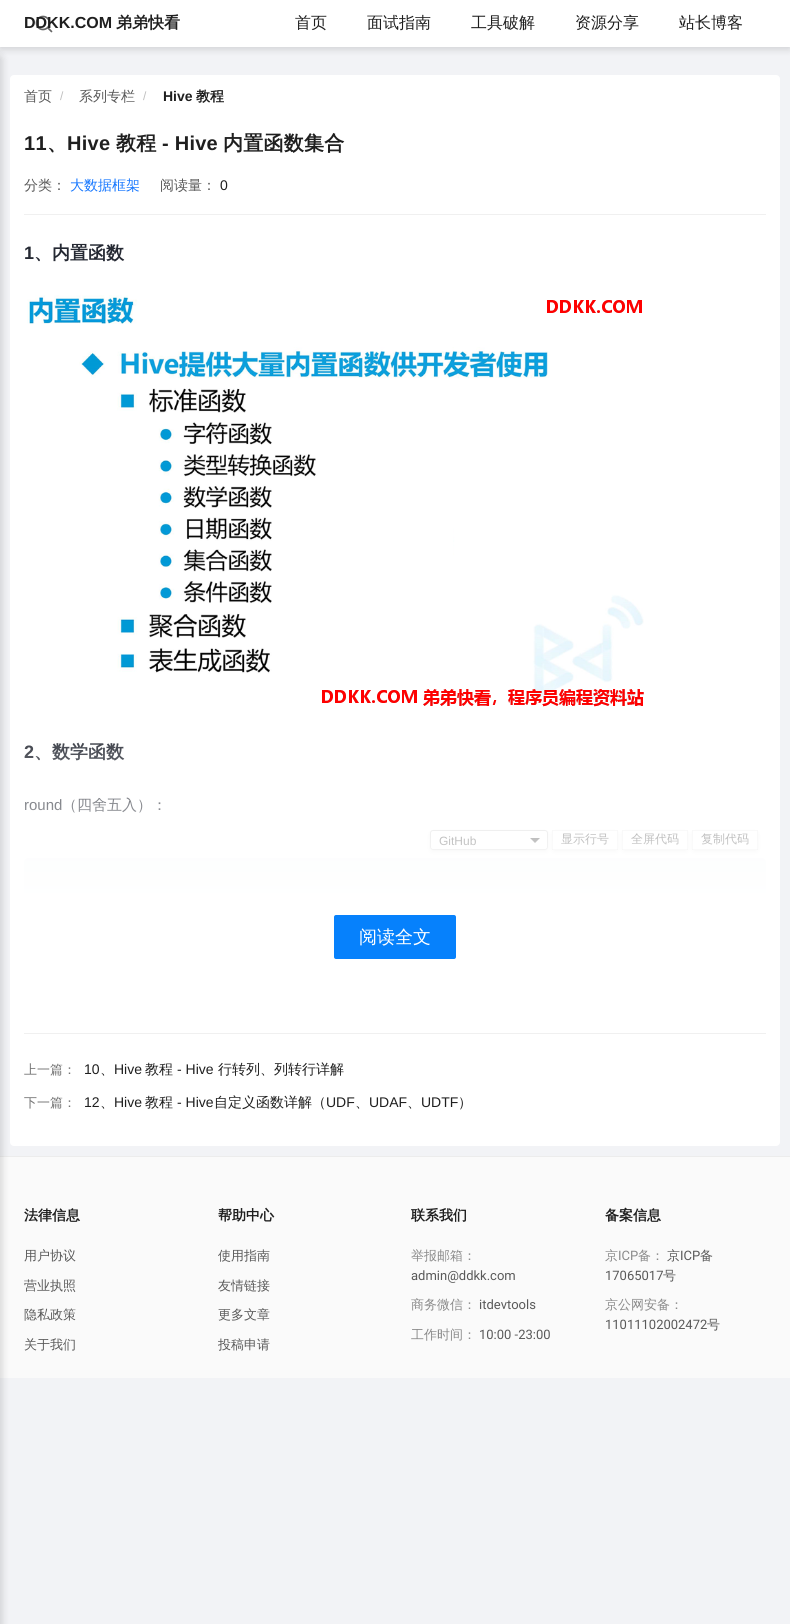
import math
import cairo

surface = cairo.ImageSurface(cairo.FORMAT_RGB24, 790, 1624)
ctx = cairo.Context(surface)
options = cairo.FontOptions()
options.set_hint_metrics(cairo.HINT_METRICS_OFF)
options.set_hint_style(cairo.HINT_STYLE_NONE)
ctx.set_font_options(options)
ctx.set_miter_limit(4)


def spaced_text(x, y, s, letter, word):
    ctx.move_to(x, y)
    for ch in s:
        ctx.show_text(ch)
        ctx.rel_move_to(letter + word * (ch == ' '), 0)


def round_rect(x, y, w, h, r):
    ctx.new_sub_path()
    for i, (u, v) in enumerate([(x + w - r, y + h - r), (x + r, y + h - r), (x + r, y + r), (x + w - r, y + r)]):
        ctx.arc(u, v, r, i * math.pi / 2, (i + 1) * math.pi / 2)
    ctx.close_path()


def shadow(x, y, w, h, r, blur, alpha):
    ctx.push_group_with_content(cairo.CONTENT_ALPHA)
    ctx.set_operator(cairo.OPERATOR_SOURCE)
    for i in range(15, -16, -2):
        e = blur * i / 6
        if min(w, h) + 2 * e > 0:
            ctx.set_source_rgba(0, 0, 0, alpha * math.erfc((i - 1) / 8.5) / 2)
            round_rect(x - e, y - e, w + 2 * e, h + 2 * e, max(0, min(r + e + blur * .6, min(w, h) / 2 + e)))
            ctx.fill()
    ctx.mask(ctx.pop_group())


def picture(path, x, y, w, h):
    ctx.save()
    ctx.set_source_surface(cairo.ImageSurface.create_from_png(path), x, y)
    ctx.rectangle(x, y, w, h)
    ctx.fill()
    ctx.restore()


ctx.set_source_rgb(0.949, 0.953, 0.961)
ctx.paint()
ctx.set_source_rgb(0, 0, 0)
shadow(0, 2, 790, 47, 0, 4, 0.15)
ctx.set_source_rgb(1, 1, 1)
ctx.rectangle(0, 0, 790, 47)
ctx.fill()
ctx.arc(43, 23, 6.5, 0, 2 * math.pi)
ctx.set_source_rgb(0.4, 0.4, 0.4)
ctx.set_line_width(1.7)
ctx.stroke()
ctx.new_path()
ctx.move_to(51.5, 31.5)
ctx.line_to(48, 28)
ctx.set_line_cap(cairo.LINE_CAP_ROUND)
ctx.set_line_join(cairo.LINE_JOIN_ROUND)
ctx.stroke()
ctx.select_font_face("Liberation Sans", cairo.FONT_SLANT_NORMAL, cairo.FONT_WEIGHT_BOLD)
ctx.set_font_size(16)
ctx.set_source_rgb(0.122, 0.122, 0.122)
ctx.move_to(24, 28)
ctx.show_text("DDKK.COM")
ctx.select_font_face("WenQuanYi Zen Hei", cairo.FONT_SLANT_NORMAL, cairo.FONT_WEIGHT_BOLD)
ctx.move_to(116, 28)
ctx.show_text("弟弟快看")
ctx.select_font_face("WenQuanYi Zen Hei Medium")
ctx.move_to(295, 28)
ctx.show_text("首页")
ctx.move_to(367, 28)
ctx.show_text("面试指南")
ctx.move_to(471, 28)
ctx.show_text("工具破解")
ctx.move_to(575, 28)
ctx.show_text("资源分享")
ctx.move_to(679, 28)
ctx.show_text("站长博客")
ctx.set_source_rgb(1, 1, 1)
round_rect(10, 75, 770, 1071, 4)
ctx.fill()
ctx.set_source_rgb(0.98, 0.98, 0.98)
ctx.rectangle(0, 1157, 790, 221)
ctx.fill()
ctx.set_source_rgb(0.922, 0.922, 0.922)
ctx.rectangle(0, 1156, 790, 1)
ctx.fill()
ctx.set_source_rgb(0, 0, 0)
shadow(-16, 55, 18, 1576, 4, 4, 0.15)
ctx.set_font_size(14)
ctx.set_source_rgb(0.349, 0.349, 0.349)
ctx.move_to(24, 101)
ctx.show_text("首页")
ctx.select_font_face("Liberation Sans")
ctx.set_font_size(12)
ctx.set_source_rgb(0.749, 0.749, 0.749)
ctx.move_to(60, 100)
ctx.show_text("/")
ctx.select_font_face("WenQuanYi Zen Hei Medium")
ctx.set_font_size(14)
ctx.set_source_rgb(0.349, 0.349, 0.349)
ctx.move_to(79, 101)
ctx.show_text("系列专栏")
ctx.select_font_face("Liberation Sans")
ctx.set_font_size(12)
ctx.set_source_rgb(0.749, 0.749, 0.749)
ctx.move_to(143, 100)
ctx.show_text("/")
ctx.select_font_face("Liberation Sans", cairo.FONT_SLANT_NORMAL, cairo.FONT_WEIGHT_BOLD)
ctx.set_font_size(14)
ctx.set_source_rgb(0.122, 0.122, 0.122)
ctx.move_to(163, 101)
ctx.show_text("Hive")
ctx.select_font_face("WenQuanYi Zen Hei", cairo.FONT_SLANT_NORMAL, cairo.FONT_WEIGHT_BOLD)
ctx.move_to(196, 101)
ctx.show_text("教程")
ctx.select_font_face("Liberation Sans", cairo.FONT_SLANT_NORMAL, cairo.FONT_WEIGHT_BOLD)
ctx.set_font_size(20)
spaced_text(24, 150, "11", 0.25, 0)
spaced_text(67, 150, "Hive", 0.25, 0)
ctx.select_font_face("WenQuanYi Zen Hei", cairo.FONT_SLANT_NORMAL, cairo.FONT_WEIGHT_BOLD)
spaced_text(116, 150, "教程", 0.25, 0)
ctx.select_font_face("Liberation Sans", cairo.FONT_SLANT_NORMAL, cairo.FONT_WEIGHT_BOLD)
spaced_text(162, 150, "- Hive", 0.25, 0)
ctx.select_font_face("WenQuanYi Zen Hei", cairo.FONT_SLANT_NORMAL, cairo.FONT_WEIGHT_BOLD)
spaced_text(223, 150, "内置函数集合", 0.25, 0)
spaced_text(47, 150, "、", 0.25, 0)
ctx.set_source_rgb(0.941, 0.941, 0.941)
ctx.rectangle(24, 214, 742, 1)
ctx.fill()
ctx.select_font_face("WenQuanYi Zen Hei Medium")
ctx.set_font_size(14)
ctx.set_source_rgb(0.349, 0.349, 0.349)
ctx.move_to(24, 190)
ctx.show_text("分类：")
ctx.set_source_rgb(0.086, 0.467, 1)
ctx.move_to(70, 190)
ctx.show_text("大数据框架")
ctx.set_source_rgb(0.349, 0.349, 0.349)
ctx.move_to(160, 190)
ctx.show_text("阅读量：")
ctx.select_font_face("Liberation Sans")
ctx.set_source_rgb(0.122, 0.122, 0.122)
ctx.move_to(220, 190)
ctx.show_text("0")
ctx.select_font_face("Liberation Sans", cairo.FONT_SLANT_NORMAL, cairo.FONT_WEIGHT_BOLD)
ctx.set_font_size(18)
ctx.set_source_rgb(0.145, 0.161, 0.2)
ctx.move_to(24, 259)
ctx.show_text("1")
ctx.select_font_face("WenQuanYi Zen Hei", cairo.FONT_SLANT_NORMAL, cairo.FONT_WEIGHT_BOLD)
ctx.move_to(34, 259)
ctx.show_text("、内置函数")
picture("img1.png", 27, 295, 617, 412)
ctx.select_font_face("Liberation Sans", cairo.FONT_SLANT_NORMAL, cairo.FONT_WEIGHT_BOLD)
ctx.move_to(24, 758)
ctx.show_text("2")
ctx.select_font_face("WenQuanYi Zen Hei", cairo.FONT_SLANT_NORMAL, cairo.FONT_WEIGHT_BOLD)
ctx.move_to(34, 758)
ctx.show_text("、数学函数")
ctx.select_font_face("Liberation Sans")
ctx.set_font_size(15)
ctx.move_to(24, 810)
ctx.show_text("round")
ctx.select_font_face("WenQuanYi Zen Hei Medium")
ctx.move_to(62, 810)
ctx.show_text("（四舍五入）：")
ctx.set_source_rgb(0.965, 0.973, 0.98)
ctx.new_path()
ctx.move_to(28, 858)
ctx.line_to(762, 858)
ctx.curve_to(764, 858, 766, 860, 766, 862)
ctx.line_to(766, 915)
ctx.line_to(24, 915)
ctx.line_to(24, 862)
ctx.curve_to(24, 860, 26, 858, 28, 858)
ctx.close_path()
ctx.fill()
ctx.save()
ctx.set_fill_rule(cairo.FILL_RULE_EVEN_ODD)
ctx.new_path()
ctx.move_to(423, 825)
ctx.line_to(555, 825)
ctx.line_to(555, 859)
ctx.line_to(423, 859)
ctx.close_path()
ctx.move_to(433, 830)
ctx.line_to(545, 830)
ctx.curve_to(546.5, 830, 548, 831.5, 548, 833)
ctx.line_to(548, 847)
ctx.curve_to(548, 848.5, 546.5, 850, 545, 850)
ctx.line_to(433, 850)
ctx.curve_to(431.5, 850, 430, 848.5, 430, 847)
ctx.line_to(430, 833)
ctx.curve_to(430, 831.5, 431.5, 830, 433, 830)
ctx.close_path()
ctx.clip()
ctx.set_source_rgb(0, 0, 0)
shadow(430, 832, 118, 20, 3, 2, 0.08)
ctx.restore()
ctx.set_source_rgba(1, 1, 1, 0.95)
round_rect(430, 830, 118, 20, 3)
ctx.fill()
ctx.set_source_rgb(0.349, 0.349, 0.349)
ctx.new_path()
ctx.move_to(535, 843)
ctx.line_to(530, 838)
ctx.line_to(540, 838)
ctx.close_path()
ctx.fill()
round_rect(430.5, 830.5, 117, 19, 2.5)
ctx.set_source_rgba(0, 0, 0, 0.15)
ctx.set_line_width(1)
ctx.set_line_cap(cairo.LINE_CAP_BUTT)
ctx.set_line_join(cairo.LINE_JOIN_MITER)
ctx.stroke()
ctx.select_font_face("Liberation Sans")
ctx.set_font_size(12)
ctx.set_source_rgb(0.349, 0.349, 0.349)
ctx.move_to(439, 845)
ctx.show_text("GitHub")
ctx.save()
ctx.set_fill_rule(cairo.FILL_RULE_EVEN_ODD)
ctx.new_path()
ctx.move_to(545, 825)
ctx.line_to(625, 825)
ctx.line_to(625, 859)
ctx.line_to(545, 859)
ctx.close_path()
ctx.move_to(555, 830)
ctx.line_to(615, 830)
ctx.curve_to(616.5, 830, 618, 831.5, 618, 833)
ctx.line_to(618, 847)
ctx.curve_to(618, 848.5, 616.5, 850, 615, 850)
ctx.line_to(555, 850)
ctx.curve_to(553.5, 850, 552, 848.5, 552, 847)
ctx.line_to(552, 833)
ctx.curve_to(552, 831.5, 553.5, 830, 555, 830)
ctx.close_path()
ctx.clip()
ctx.set_source_rgb(0, 0, 0)
shadow(552, 832, 66, 20, 3, 2, 0.08)
ctx.restore()
ctx.set_source_rgba(1, 1, 1, 0.95)
round_rect(552, 830, 66, 20, 3)
ctx.fill()
ctx.rectangle(552.5, 830.5, 65, 19)
ctx.set_source_rgba(0, 0, 0, 0.06)
ctx.stroke()
ctx.select_font_face("WenQuanYi Zen Hei Medium")
ctx.set_source_rgb(0.349, 0.349, 0.349)
ctx.move_to(561, 843)
ctx.show_text("显示行号")
ctx.save()
ctx.set_fill_rule(cairo.FILL_RULE_EVEN_ODD)
ctx.new_path()
ctx.move_to(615, 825)
ctx.line_to(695, 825)
ctx.line_to(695, 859)
ctx.line_to(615, 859)
ctx.close_path()
ctx.move_to(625, 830)
ctx.line_to(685, 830)
ctx.curve_to(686.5, 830, 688, 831.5, 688, 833)
ctx.line_to(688, 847)
ctx.curve_to(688, 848.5, 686.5, 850, 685, 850)
ctx.line_to(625, 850)
ctx.curve_to(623.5, 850, 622, 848.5, 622, 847)
ctx.line_to(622, 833)
ctx.curve_to(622, 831.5, 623.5, 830, 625, 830)
ctx.close_path()
ctx.clip()
ctx.set_source_rgb(0, 0, 0)
shadow(622, 832, 66, 20, 3, 2, 0.08)
ctx.restore()
ctx.set_source_rgba(1, 1, 1, 0.95)
round_rect(622, 830, 66, 20, 3)
ctx.fill()
ctx.rectangle(622.5, 830.5, 65, 19)
ctx.set_source_rgba(0, 0, 0, 0.06)
ctx.stroke()
ctx.set_source_rgb(0.349, 0.349, 0.349)
ctx.move_to(631, 843)
ctx.show_text("全屏代码")
ctx.save()
ctx.set_fill_rule(cairo.FILL_RULE_EVEN_ODD)
ctx.new_path()
ctx.move_to(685, 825)
ctx.line_to(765, 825)
ctx.line_to(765, 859)
ctx.line_to(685, 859)
ctx.close_path()
ctx.move_to(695, 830)
ctx.line_to(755, 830)
ctx.curve_to(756.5, 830, 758, 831.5, 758, 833)
ctx.line_to(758, 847)
ctx.curve_to(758, 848.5, 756.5, 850, 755, 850)
ctx.line_to(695, 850)
ctx.curve_to(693.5, 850, 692, 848.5, 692, 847)
ctx.line_to(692, 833)
ctx.curve_to(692, 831.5, 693.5, 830, 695, 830)
ctx.close_path()
ctx.clip()
ctx.set_source_rgb(0, 0, 0)
shadow(692, 832, 66, 20, 3, 2, 0.08)
ctx.restore()
ctx.set_source_rgba(1, 1, 1, 0.95)
round_rect(692, 830, 66, 20, 3)
ctx.fill()
ctx.rectangle(692.5, 830.5, 65, 19)
ctx.set_source_rgba(0, 0, 0, 0.06)
ctx.stroke()
ctx.set_source_rgb(0.349, 0.349, 0.349)
ctx.move_to(701, 843)
ctx.show_text("复制代码")
gradient = cairo.LinearGradient(395, 715, 395, 915)
gradient.add_color_stop_rgba(0, 1, 1, 1, 0)
gradient.add_color_stop_rgba(0.6, 1, 1, 1, 0.6)
gradient.add_color_stop_rgba(0.9, 1, 1, 1, 0.95)
gradient.add_color_stop_rgba(1, 1, 1, 1, 1)
ctx.set_source(gradient)
ctx.rectangle(24, 743, 742, 172)
ctx.fill()
ctx.set_source_rgb(0.027, 0.506, 0.988)
round_rect(334, 915, 122, 44, 2)
ctx.fill()
ctx.set_font_size(18)
ctx.set_source_rgb(1, 1, 1)
ctx.move_to(359, 943)
ctx.show_text("阅读全文")
ctx.set_source_rgb(0.941, 0.941, 0.941)
ctx.rectangle(24, 1033, 742, 1)
ctx.fill()
ctx.set_font_size(13)
ctx.set_source_rgb(0.451, 0.451, 0.451)
ctx.move_to(24, 1074)
ctx.show_text("上一篇：")
ctx.select_font_face("Liberation Sans")
ctx.set_font_size(14)
ctx.set_source_rgb(0.122, 0.122, 0.122)
ctx.move_to(84, 1074)
ctx.show_text("10")
ctx.select_font_face("WenQuanYi Zen Hei Medium")
ctx.move_to(100, 1074)
ctx.show_text("、")
ctx.select_font_face("Liberation Sans")
ctx.move_to(114, 1074)
ctx.show_text("Hive")
ctx.select_font_face("WenQuanYi Zen Hei Medium")
ctx.move_to(145, 1074)
ctx.show_text("教程")
ctx.select_font_face("Liberation Sans")
ctx.move_to(177, 1074)
ctx.show_text("- Hive")
ctx.select_font_face("WenQuanYi Zen Hei Medium")
ctx.move_to(218, 1074)
ctx.show_text("行转列、列转行详解")
ctx.set_font_size(13)
ctx.set_source_rgb(0.451, 0.451, 0.451)
ctx.move_to(24, 1107)
ctx.show_text("下一篇：")
ctx.select_font_face("Liberation Sans")
ctx.set_font_size(14)
ctx.set_source_rgb(0.122, 0.122, 0.122)
ctx.move_to(84, 1107)
ctx.show_text("12")
ctx.select_font_face("WenQuanYi Zen Hei Medium")
ctx.move_to(100, 1107)
ctx.show_text("、")
ctx.select_font_face("Liberation Sans")
ctx.move_to(114, 1107)
ctx.show_text("Hive")
ctx.select_font_face("WenQuanYi Zen Hei Medium")
ctx.move_to(145, 1107)
ctx.show_text("教程")
ctx.select_font_face("Liberation Sans")
ctx.move_to(177, 1107)
ctx.show_text("- Hive")
ctx.select_font_face("WenQuanYi Zen Hei Medium")
ctx.move_to(214, 1107)
ctx.show_text("自定义函数详解（")
ctx.select_font_face("Liberation Sans")
ctx.move_to(326, 1107)
ctx.show_text("UDF")
ctx.select_font_face("WenQuanYi Zen Hei Medium")
ctx.move_to(355, 1107)
ctx.show_text("、")
ctx.select_font_face("Liberation Sans")
ctx.move_to(369, 1107)
ctx.show_text("UDAF")
ctx.select_font_face("WenQuanYi Zen Hei Medium")
ctx.move_to(407, 1107)
ctx.show_text("、")
ctx.select_font_face("Liberation Sans")
ctx.move_to(421, 1107)
ctx.show_text("UDTF")
ctx.select_font_face("WenQuanYi Zen Hei Medium")
ctx.move_to(458, 1107)
ctx.show_text("）")
ctx.select_font_face("WenQuanYi Zen Hei", cairo.FONT_SLANT_NORMAL, cairo.FONT_WEIGHT_BOLD)
ctx.move_to(24, 1220)
ctx.show_text("法律信息")
ctx.select_font_face("WenQuanYi Zen Hei Medium")
ctx.set_font_size(13)
ctx.set_source_rgb(0.349, 0.349, 0.349)
ctx.move_to(24, 1260)
ctx.show_text("用户协议")
ctx.move_to(24, 1290)
ctx.show_text("营业执照")
ctx.move_to(24, 1319)
ctx.show_text("隐私政策")
ctx.move_to(24, 1349)
ctx.show_text("关于我们")
ctx.select_font_face("WenQuanYi Zen Hei", cairo.FONT_SLANT_NORMAL, cairo.FONT_WEIGHT_BOLD)
ctx.set_font_size(14)
ctx.set_source_rgb(0.122, 0.122, 0.122)
ctx.move_to(218, 1220)
ctx.show_text("帮助中心")
ctx.select_font_face("WenQuanYi Zen Hei Medium")
ctx.set_font_size(13)
ctx.set_source_rgb(0.349, 0.349, 0.349)
ctx.move_to(218, 1260)
ctx.show_text("使用指南")
ctx.move_to(218, 1290)
ctx.show_text("友情链接")
ctx.move_to(218, 1319)
ctx.show_text("更多文章")
ctx.move_to(218, 1349)
ctx.show_text("投稿申请")
ctx.select_font_face("WenQuanYi Zen Hei", cairo.FONT_SLANT_NORMAL, cairo.FONT_WEIGHT_BOLD)
ctx.set_font_size(14)
ctx.set_source_rgb(0.122, 0.122, 0.122)
ctx.move_to(411, 1220)
ctx.show_text("联系我们")
ctx.select_font_face("WenQuanYi Zen Hei Medium")
ctx.set_font_size(13)
ctx.set_source_rgb(0.541, 0.541, 0.541)
ctx.move_to(411, 1260)
ctx.show_text("举报邮箱：")
ctx.select_font_face("Roboto")
ctx.set_source_rgb(0.349, 0.349, 0.349)
ctx.move_to(411, 1280)
ctx.show_text("admin@ddkk.com")
ctx.select_font_face("WenQuanYi Zen Hei Medium")
ctx.set_source_rgb(0.541, 0.541, 0.541)
ctx.move_to(411, 1309)
ctx.show_text("商务微信：")
ctx.select_font_face("Roboto")
ctx.set_source_rgb(0.349, 0.349, 0.349)
ctx.move_to(479, 1309)
ctx.show_text("itdevtools")
ctx.select_font_face("WenQuanYi Zen Hei Medium")
ctx.set_source_rgb(0.541, 0.541, 0.541)
ctx.move_to(411, 1339)
ctx.show_text("工作时间：")
ctx.select_font_face("Roboto")
ctx.set_source_rgb(0.349, 0.349, 0.349)
ctx.move_to(479, 1339)
ctx.show_text("10:00 -23:00")
ctx.select_font_face("WenQuanYi Zen Hei", cairo.FONT_SLANT_NORMAL, cairo.FONT_WEIGHT_BOLD)
ctx.set_font_size(14)
ctx.set_source_rgb(0.122, 0.122, 0.122)
ctx.move_to(605, 1220)
ctx.show_text("备案信息")
ctx.select_font_face("WenQuanYi Zen Hei Medium")
ctx.set_font_size(13)
ctx.set_source_rgb(0.541, 0.541, 0.541)
ctx.move_to(605, 1260)
ctx.show_text("京")
ctx.select_font_face("Roboto")
ctx.move_to(618, 1260)
ctx.show_text("ICP")
ctx.select_font_face("WenQuanYi Zen Hei Medium")
ctx.move_to(638, 1260)
ctx.show_text("备：")
ctx.set_source_rgb(0.349, 0.349, 0.349)
ctx.move_to(667, 1260)
ctx.show_text("京")
ctx.select_font_face("Roboto")
ctx.move_to(680, 1260)
ctx.show_text("ICP")
ctx.select_font_face("WenQuanYi Zen Hei Medium")
ctx.move_to(700, 1260)
ctx.show_text("备")
ctx.select_font_face("Roboto")
ctx.move_to(605, 1280)
ctx.show_text("17065017")
ctx.select_font_face("WenQuanYi Zen Hei Medium")
ctx.move_to(663, 1280)
ctx.show_text("号")
ctx.set_source_rgb(0.541, 0.541, 0.541)
ctx.move_to(605, 1309)
ctx.show_text("京公网安备：")
ctx.select_font_face("Roboto")
ctx.set_source_rgb(0.349, 0.349, 0.349)
ctx.move_to(605, 1329)
ctx.show_text("11011102002472")
ctx.select_font_face("WenQuanYi Zen Hei Medium")
ctx.move_to(707, 1329)
ctx.show_text("号")
surface.write_to_png("page.png")
